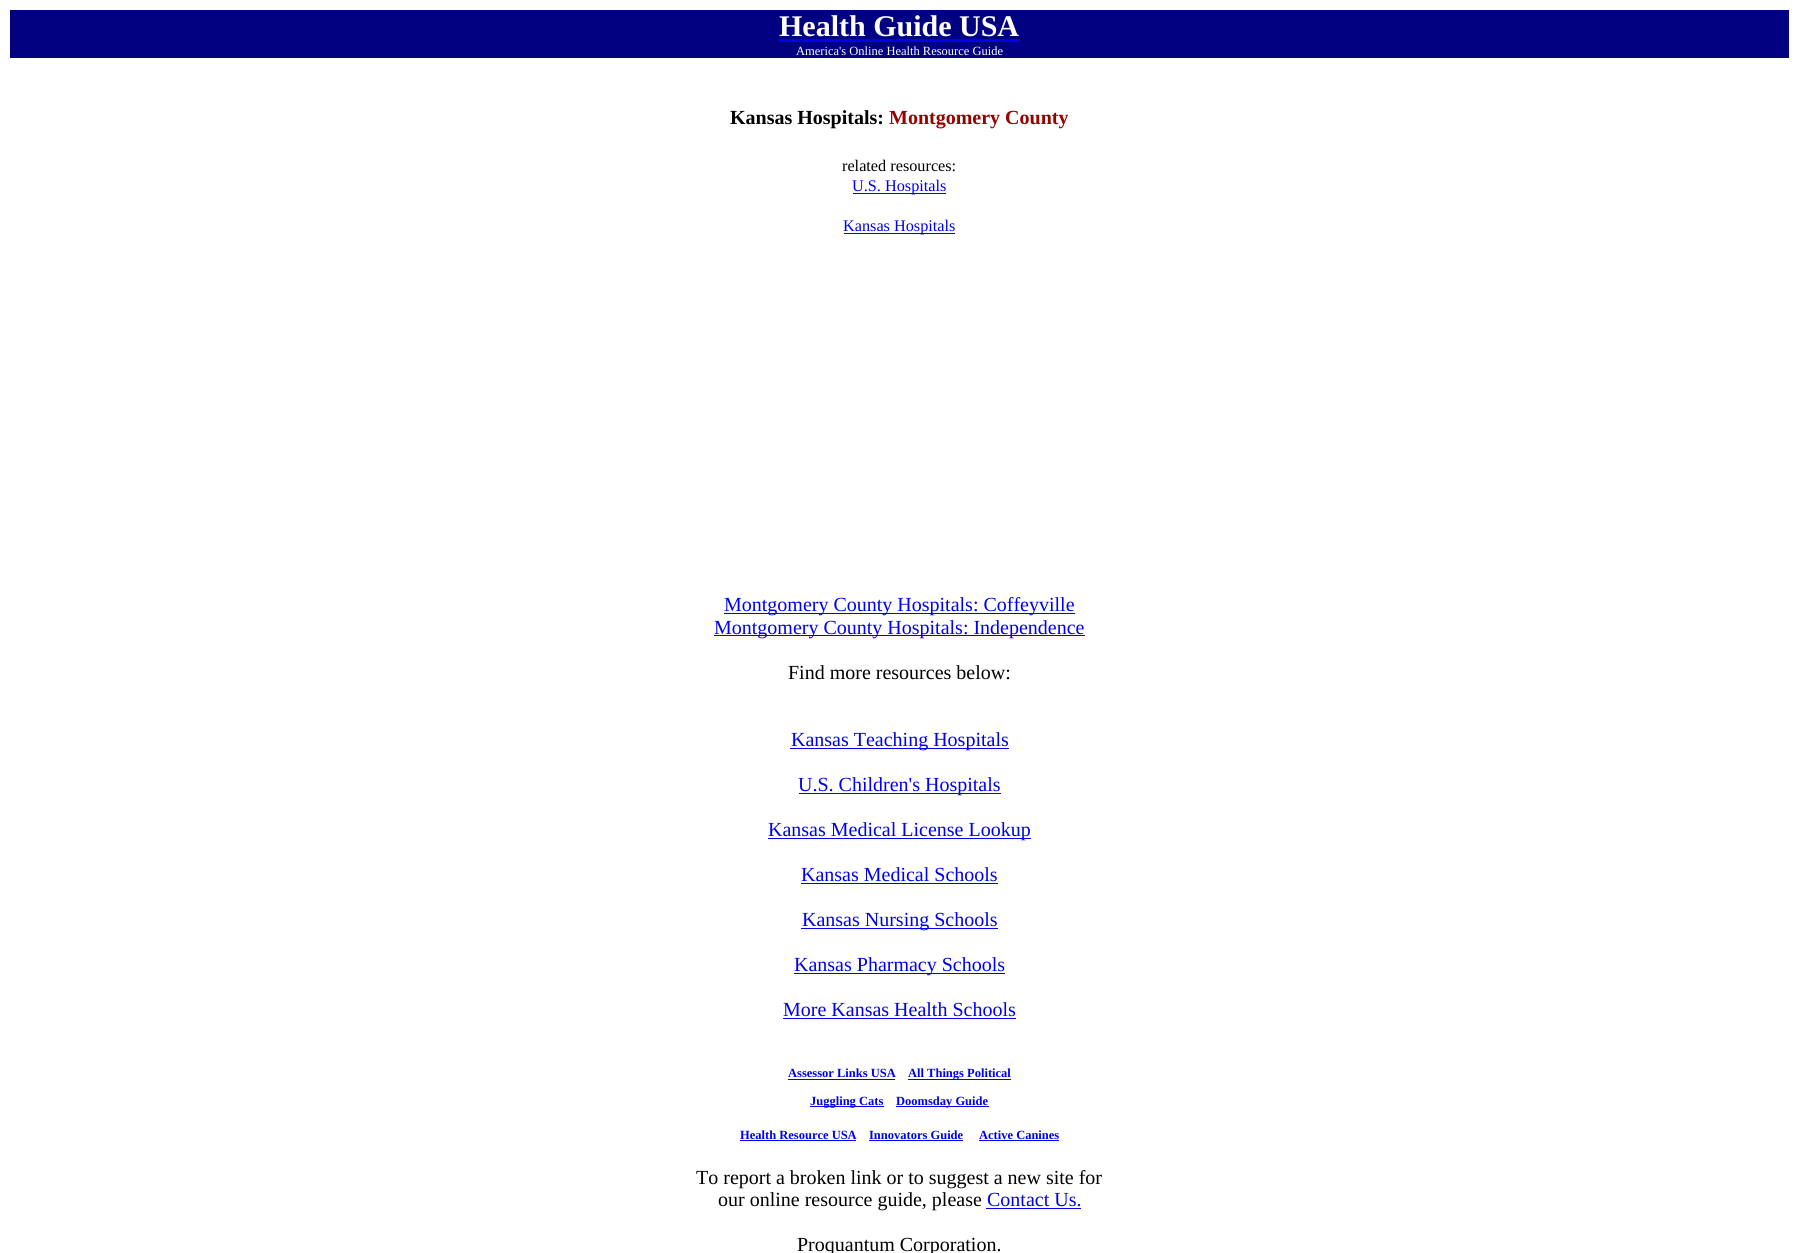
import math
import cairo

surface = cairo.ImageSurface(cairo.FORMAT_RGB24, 1798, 1253)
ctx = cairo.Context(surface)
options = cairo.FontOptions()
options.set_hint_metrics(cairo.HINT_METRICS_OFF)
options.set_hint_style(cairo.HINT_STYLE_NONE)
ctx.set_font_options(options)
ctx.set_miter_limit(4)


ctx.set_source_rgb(1, 1, 1)
ctx.paint()
ctx.set_source_rgb(0, 0, 0.502)
ctx.rectangle(10, 10, 1779, 48)
ctx.fill()
ctx.select_font_face("Liberation Serif", cairo.FONT_SLANT_NORMAL, cairo.FONT_WEIGHT_BOLD)
ctx.set_font_size(30)
ctx.set_source_rgb(1, 1, 1)
ctx.move_to(779, 36)
ctx.show_text("Health Guide USA")
ctx.set_source_rgb(0, 0, 0.933)
ctx.rectangle(779, 39, 241, 3)
ctx.fill()
ctx.select_font_face("Liberation Serif")
ctx.set_font_size(12.5)
ctx.set_source_rgb(1, 1, 1)
ctx.move_to(796, 55)
ctx.show_text("America's Online Health Resource Guide")
ctx.select_font_face("Liberation Serif", cairo.FONT_SLANT_NORMAL, cairo.FONT_WEIGHT_BOLD)
ctx.set_font_size(20)
ctx.set_source_rgb(0, 0, 0)
ctx.move_to(730, 124)
ctx.show_text("Kansas Hospitals:")
ctx.set_source_rgb(0.6, 0, 0)
ctx.move_to(889, 124)
ctx.show_text("Montgomery County")
ctx.select_font_face("Liberation Serif")
ctx.set_font_size(16.25)
ctx.set_source_rgb(0, 0, 0)
ctx.move_to(842, 171)
ctx.show_text("related resources:")
ctx.set_source_rgb(0, 0, 0.933)
ctx.rectangle(853, 193, 93, 1)
ctx.fill()
ctx.move_to(852, 191)
ctx.show_text("U.S. Hospitals")
ctx.rectangle(844, 233, 111, 1)
ctx.fill()
ctx.move_to(843, 231)
ctx.show_text("Kansas Hospitals")
ctx.rectangle(724, 613, 351, 1)
ctx.fill()
ctx.set_font_size(20)
ctx.move_to(724, 611)
ctx.show_text("Montgomery County Hospitals: Coffeyville")
ctx.rectangle(714, 635, 371, 1)
ctx.fill()
ctx.move_to(714, 634)
ctx.show_text("Montgomery County Hospitals: Independence")
ctx.set_source_rgb(0, 0, 0)
ctx.move_to(788, 679)
ctx.show_text("Find more resources below:")
ctx.set_source_rgb(0, 0, 0.933)
ctx.rectangle(790, 748, 219, 1)
ctx.fill()
ctx.move_to(791, 746)
ctx.show_text("Kansas Teaching Hospitals")
ctx.rectangle(799, 793, 202, 1)
ctx.fill()
ctx.move_to(798, 791)
ctx.show_text("U.S. Children's Hospitals")
ctx.rectangle(768, 838, 263, 1)
ctx.fill()
ctx.move_to(768, 836)
ctx.show_text("Kansas Medical License Lookup")
ctx.move_to(801, 881)
ctx.show_text("Kansas Medical Schools")
ctx.rectangle(801, 883, 197, 1)
ctx.fill()
ctx.rectangle(801, 928, 197, 1)
ctx.fill()
ctx.move_to(802, 926)
ctx.show_text("Kansas Nursing Schools")
ctx.rectangle(794, 973, 211, 1)
ctx.fill()
ctx.move_to(794, 971)
ctx.show_text("Kansas Pharmacy Schools")
ctx.move_to(783, 1016)
ctx.show_text("More Kansas Health Schools")
ctx.rectangle(783, 1018, 233, 1)
ctx.fill()
ctx.select_font_face("Liberation Serif", cairo.FONT_SLANT_NORMAL, cairo.FONT_WEIGHT_BOLD)
ctx.set_font_size(12.5)
ctx.move_to(788, 1077)
ctx.show_text("Assessor Links USA")
ctx.rectangle(788, 1079, 107, 1)
ctx.fill()
ctx.rectangle(908, 1079, 103, 1)
ctx.fill()
ctx.move_to(908, 1077)
ctx.show_text("All Things Political")
ctx.rectangle(810, 1106, 74, 1)
ctx.fill()
ctx.move_to(810, 1105)
ctx.show_text("Juggling Cats")
ctx.rectangle(896, 1106, 93, 1)
ctx.fill()
ctx.move_to(896, 1105)
ctx.show_text("Doomsday Guide")
ctx.move_to(740, 1139)
ctx.show_text("Health Resource USA")
ctx.rectangle(740, 1140, 116, 1)
ctx.fill()
ctx.move_to(869, 1139)
ctx.show_text("Innovators Guide")
ctx.rectangle(869, 1140, 94, 1)
ctx.fill()
ctx.move_to(979, 1139)
ctx.show_text("Active Canines")
ctx.rectangle(979, 1140, 80, 1)
ctx.fill()
ctx.select_font_face("Liberation Serif")
ctx.set_font_size(20)
ctx.set_source_rgb(0, 0, 0)
ctx.move_to(696, 1184)
ctx.show_text("To report a broken link or to suggest a new site for")
ctx.move_to(718, 1206)
ctx.show_text("our online resource guide, please")
ctx.set_source_rgb(0, 0, 0.933)
ctx.move_to(987, 1206)
ctx.show_text("Contact Us.")
ctx.rectangle(986, 1208, 95, 1)
ctx.fill()
ctx.set_source_rgb(0, 0, 0)
ctx.move_to(797, 1251)
ctx.show_text("Proquantum Corporation.")
surface.write_to_png("page.png")
